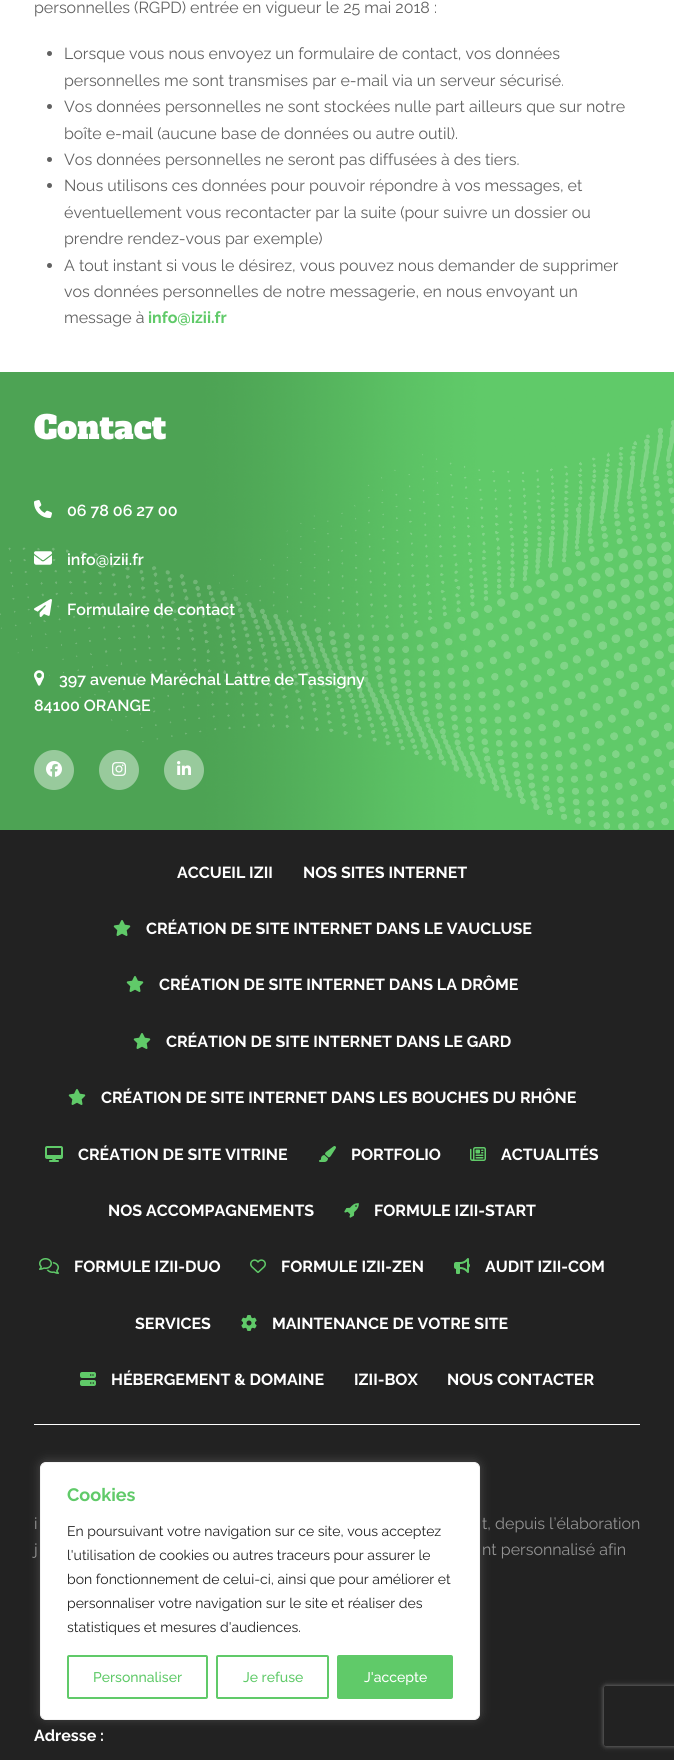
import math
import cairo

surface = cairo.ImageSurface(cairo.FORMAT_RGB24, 674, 1760)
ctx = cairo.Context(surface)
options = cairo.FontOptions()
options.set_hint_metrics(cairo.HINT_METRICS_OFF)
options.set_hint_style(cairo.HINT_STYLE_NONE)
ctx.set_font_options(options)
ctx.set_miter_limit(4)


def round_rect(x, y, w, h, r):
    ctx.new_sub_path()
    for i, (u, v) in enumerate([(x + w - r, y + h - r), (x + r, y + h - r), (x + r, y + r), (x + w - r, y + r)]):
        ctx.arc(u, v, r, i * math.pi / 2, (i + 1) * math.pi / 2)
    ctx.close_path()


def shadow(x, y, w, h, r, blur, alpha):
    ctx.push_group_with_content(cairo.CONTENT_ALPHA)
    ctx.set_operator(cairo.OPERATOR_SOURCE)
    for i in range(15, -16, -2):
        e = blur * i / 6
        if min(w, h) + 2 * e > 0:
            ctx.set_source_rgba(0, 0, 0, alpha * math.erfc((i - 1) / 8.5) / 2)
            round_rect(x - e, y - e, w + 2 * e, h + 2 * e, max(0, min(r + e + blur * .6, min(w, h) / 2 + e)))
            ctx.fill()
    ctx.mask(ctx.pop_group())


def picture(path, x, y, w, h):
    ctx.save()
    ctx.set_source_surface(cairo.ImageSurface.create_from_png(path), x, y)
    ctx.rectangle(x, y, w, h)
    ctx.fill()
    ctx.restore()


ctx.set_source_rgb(1, 1, 1)
ctx.paint()
ctx.select_font_face("Raleway")
ctx.set_font_size(16)
ctx.set_source_rgb(0.38, 0.38, 0.38)
ctx.move_to(34, 13)
ctx.show_text("personnelles (RGPD) entrée en vigueur le 25 mai 2018 :")
ctx.new_path()
ctx.arc(49.5, 53.5, 2.5, 0, 2 * math.pi)
ctx.fill()
ctx.move_to(64, 59)
ctx.show_text("Lorsque vous nous envoyez un formulaire de contact, vos données")
ctx.move_to(64, 86)
ctx.show_text("personnelles me sont transmises par e-mail via un serveur sécurisé.")
ctx.new_path()
ctx.arc(49.5, 106.5, 2.5, 0, 2 * math.pi)
ctx.fill()
ctx.move_to(64, 112)
ctx.show_text("Vos données personnelles ne sont stockées nulle part ailleurs que sur notre")
ctx.move_to(64, 139)
ctx.show_text("boîte e-mail (aucune base de données ou autre outil).")
ctx.new_path()
ctx.arc(49.5, 159.5, 2.5, 0, 2 * math.pi)
ctx.fill()
ctx.move_to(64, 165)
ctx.show_text("Vos données personnelles ne seront pas diffusées à des tiers.")
ctx.new_path()
ctx.arc(49.5, 185.5, 2.5, 0, 2 * math.pi)
ctx.fill()
ctx.move_to(64, 191)
ctx.show_text("Nous utilisons ces données pour pouvoir répondre à vos messages, et")
ctx.move_to(64, 218)
ctx.show_text("éventuellement vous recontacter par la suite (pour suivre un dossier ou")
ctx.move_to(64, 244)
ctx.show_text("prendre rendez-vous par exemple)")
ctx.new_path()
ctx.arc(49.5, 265.5, 2.5, 0, 2 * math.pi)
ctx.fill()
ctx.move_to(64, 271)
ctx.show_text("A tout instant si vous le désirez, vous pouvez nous demander de supprimer")
ctx.move_to(64, 297)
ctx.show_text("vos données personnelles de notre messagerie, en nous envoyant un")
ctx.move_to(64, 323)
ctx.show_text("message à")
ctx.select_font_face("Raleway", cairo.FONT_SLANT_NORMAL, cairo.FONT_WEIGHT_BOLD)
ctx.set_source_rgb(0.376, 0.792, 0.412)
ctx.move_to(148, 323)
ctx.show_text("info@izii.fr")
picture("img1.png", 0, 372, 674, 458)
ctx.select_font_face("Alfa Slab One")
ctx.set_font_size(32)
ctx.set_source_rgb(1, 1, 1)
ctx.move_to(34, 439)
ctx.show_text("Contact")
picture("img2.png", 34, 500, 18, 18)
ctx.select_font_face("Raleway SemiBold")
ctx.set_font_size(16)
ctx.move_to(67, 516)
ctx.show_text("06 78 06 27 00")
picture("img3.png", 34, 551, 18, 14)
ctx.move_to(67, 565)
ctx.show_text("info@izii.fr")
picture("img4.png", 34, 599, 18, 18)
ctx.move_to(67, 615)
ctx.show_text("Formulaire de contact")
picture("img5.png", 34, 670, 10, 16)
ctx.move_to(59, 685)
ctx.show_text("397 avenue Maréchal Lattre de Tassigny")
ctx.move_to(34, 711)
ctx.show_text("84100 ORANGE")
ctx.set_source_rgb(0.596, 0.792, 0.612)
ctx.new_path()
ctx.arc(54, 770, 20, 0, 2 * math.pi)
ctx.fill()
picture("img6.png", 46, 761, 16, 16)
ctx.arc(119, 770, 20, 0, 2 * math.pi)
ctx.fill()
picture("img7.png", 112, 762, 14, 14)
ctx.arc(184, 770, 20, 0, 2 * math.pi)
ctx.fill()
picture("img8.png", 177, 761, 14, 14)
ctx.set_source_rgb(0.133, 0.133, 0.133)
ctx.rectangle(0, 830, 674, 930)
ctx.fill()
ctx.set_source_rgb(1, 1, 1)
ctx.rectangle(34, 1424, 606, 1)
ctx.fill()
ctx.select_font_face("Raleway", cairo.FONT_SLANT_NORMAL, cairo.FONT_WEIGHT_BOLD)
ctx.move_to(177, 878)
ctx.show_text("ACCUEIL IZII")
ctx.move_to(303, 878)
ctx.show_text("NOS SITES INTERNET")
picture("img9.png", 113, 920, 18, 16)
ctx.move_to(146, 934)
ctx.show_text("CRÉATION DE SITE INTERNET DANS LE VAUCLUSE")
picture("img9.png", 126, 976, 18, 16)
ctx.move_to(159, 990)
ctx.show_text("CRÉATION DE SITE INTERNET DANS LA DRÔME")
picture("img9.png", 133, 1033, 18, 16)
ctx.move_to(166, 1047)
ctx.show_text("CRÉATION DE SITE INTERNET DANS LE GARD")
picture("img9.png", 68, 1089, 18, 16)
ctx.move_to(101, 1103)
ctx.show_text("CRÉATION DE SITE INTERNET DANS LES BOUCHES DU RHÔNE")
picture("img10.png", 45, 1146, 18, 16)
ctx.move_to(78, 1160)
ctx.show_text("CRÉATION DE SITE VITRINE")
picture("img11.png", 319, 1146, 17, 16)
ctx.move_to(351, 1160)
ctx.show_text("PORTFOLIO")
picture("img12.png", 470, 1147, 16, 14)
ctx.move_to(501, 1160)
ctx.show_text("ACTUALITÉS")
ctx.move_to(108, 1216)
ctx.show_text("NOS ACCOMPAGNEMENTS")
picture("img13.png", 344, 1203, 15, 15)
ctx.move_to(374, 1216)
ctx.show_text("FORMULE IZII-START")
picture("img14.png", 39, 1258, 20, 16)
ctx.move_to(74, 1272)
ctx.show_text("FORMULE IZII-DUO")
picture("img15.png", 250, 1259, 16, 14)
ctx.move_to(281, 1272)
ctx.show_text("FORMULE IZII-ZEN")
picture("img16.png", 454, 1258, 16, 16)
ctx.move_to(485, 1272)
ctx.show_text("AUDIT IZII-COM")
ctx.move_to(135, 1329)
ctx.show_text("SERVICES")
picture("img17.png", 241, 1315, 16, 16)
ctx.move_to(272, 1329)
ctx.show_text("MAINTENANCE DE VOTRE SITE")
picture("img18.png", 80, 1372, 16, 14)
ctx.move_to(111, 1385)
ctx.show_text("HÉBERGEMENT & DOMAINE")
ctx.move_to(354, 1385)
ctx.show_text("IZII-BOX")
ctx.move_to(447, 1385)
ctx.show_text("NOUS CONTACTER")
ctx.select_font_face("Raleway")
ctx.set_source_rgb(0.58, 0.58, 0.58)
ctx.move_to(34, 1529)
ctx.show_text("i")
ctx.move_to(482, 1529)
ctx.show_text("t, depuis l’élaboration")
ctx.move_to(34, 1555)
ctx.show_text("j")
ctx.move_to(482, 1555)
ctx.show_text("nt personnalisé afin")
ctx.select_font_face("Raleway", cairo.FONT_SLANT_NORMAL, cairo.FONT_WEIGHT_BOLD)
ctx.set_source_rgb(1, 1, 1)
ctx.move_to(34, 1741)
ctx.show_text("Adresse :")
ctx.set_source_rgb(0.675, 0.671, 0.671)
shadow(40, 1461, 440, 258, 6, 5, 0.3)
ctx.set_source_rgb(1, 1, 1)
round_rect(40.5, 1462.5, 439, 257, 5.5)
ctx.fill_preserve()
ctx.set_source_rgb(0.957, 0.957, 0.957)
ctx.set_line_width(1)
ctx.stroke()
ctx.set_font_size(18)
ctx.set_source_rgb(0.376, 0.792, 0.412)
ctx.move_to(67, 1501)
ctx.show_text("Cookies")
ctx.select_font_face("Raleway")
ctx.set_font_size(14)
ctx.set_source_rgb(0.129, 0.129, 0.129)
ctx.move_to(67, 1536)
ctx.show_text("En poursuivant votre navigation sur ce site, vous acceptez")
ctx.move_to(67, 1560)
ctx.show_text("l'utilisation de cookies ou autres traceurs pour assurer le")
ctx.move_to(67, 1584)
ctx.show_text("bon fonctionnement de celui-ci, ainsi que pour améliorer et")
ctx.move_to(67, 1608)
ctx.show_text("personnaliser votre navigation sur le site et réaliser des")
ctx.move_to(67, 1632)
ctx.show_text("statistiques et mesures d'audiences.")
round_rect(68, 1656, 139, 42, 1)
ctx.set_source_rgb(0.376, 0.792, 0.412)
ctx.set_line_width(2)
ctx.stroke()
ctx.select_font_face("Raleway Medium")
ctx.move_to(93, 1682)
ctx.show_text("Personnaliser")
round_rect(217, 1656, 111, 42, 1)
ctx.stroke()
ctx.move_to(243, 1682)
ctx.show_text("Je refuse")
round_rect(338, 1656, 114, 42, 1)
ctx.fill_preserve()
ctx.stroke()
ctx.set_source_rgb(1, 1, 1)
ctx.move_to(364, 1682)
ctx.show_text("J'accepte")
ctx.save()
ctx.set_fill_rule(cairo.FILL_RULE_EVEN_ODD)
ctx.new_path()
ctx.move_to(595, 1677)
ctx.line_to(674, 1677)
ctx.line_to(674, 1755)
ctx.line_to(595, 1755)
ctx.close_path()
ctx.move_to(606, 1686)
ctx.line_to(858, 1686)
ctx.curve_to(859, 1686, 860, 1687, 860, 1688)
ctx.line_to(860, 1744)
ctx.curve_to(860, 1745, 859, 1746, 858, 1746)
ctx.line_to(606, 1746)
ctx.curve_to(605, 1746, 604, 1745, 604, 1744)
ctx.line_to(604, 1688)
ctx.curve_to(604, 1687, 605, 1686, 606, 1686)
ctx.close_path()
ctx.clip()
ctx.set_source_rgb(0.502, 0.502, 0.502)
shadow(604, 1686, 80, 60, 2, 2.5, 1)
ctx.restore()
surface.write_to_png("page.png")
